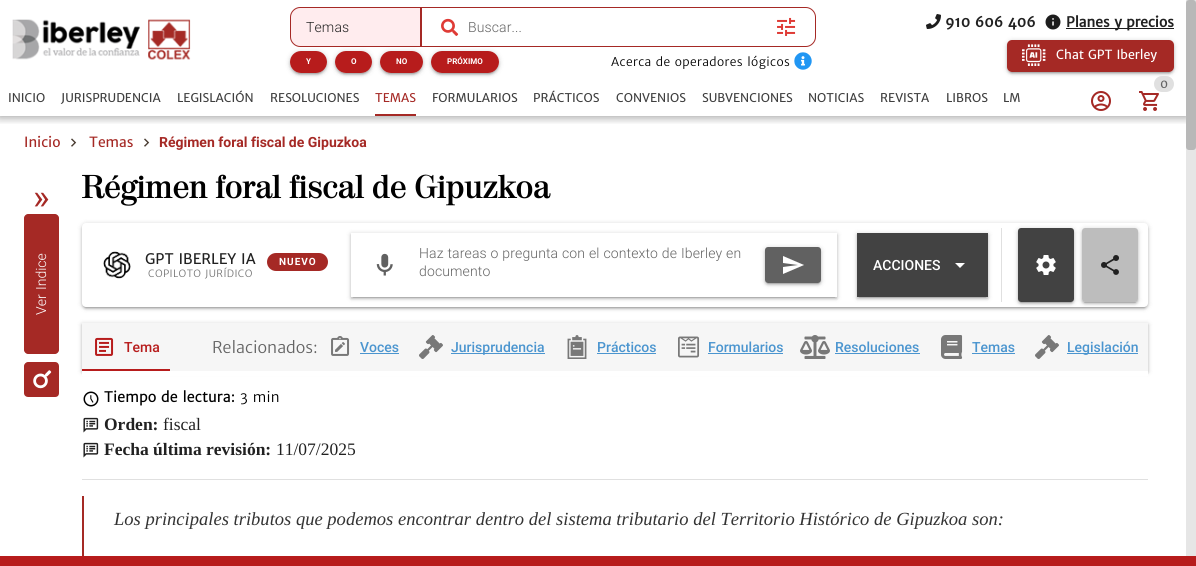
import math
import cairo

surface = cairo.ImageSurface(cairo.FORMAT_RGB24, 1196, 566)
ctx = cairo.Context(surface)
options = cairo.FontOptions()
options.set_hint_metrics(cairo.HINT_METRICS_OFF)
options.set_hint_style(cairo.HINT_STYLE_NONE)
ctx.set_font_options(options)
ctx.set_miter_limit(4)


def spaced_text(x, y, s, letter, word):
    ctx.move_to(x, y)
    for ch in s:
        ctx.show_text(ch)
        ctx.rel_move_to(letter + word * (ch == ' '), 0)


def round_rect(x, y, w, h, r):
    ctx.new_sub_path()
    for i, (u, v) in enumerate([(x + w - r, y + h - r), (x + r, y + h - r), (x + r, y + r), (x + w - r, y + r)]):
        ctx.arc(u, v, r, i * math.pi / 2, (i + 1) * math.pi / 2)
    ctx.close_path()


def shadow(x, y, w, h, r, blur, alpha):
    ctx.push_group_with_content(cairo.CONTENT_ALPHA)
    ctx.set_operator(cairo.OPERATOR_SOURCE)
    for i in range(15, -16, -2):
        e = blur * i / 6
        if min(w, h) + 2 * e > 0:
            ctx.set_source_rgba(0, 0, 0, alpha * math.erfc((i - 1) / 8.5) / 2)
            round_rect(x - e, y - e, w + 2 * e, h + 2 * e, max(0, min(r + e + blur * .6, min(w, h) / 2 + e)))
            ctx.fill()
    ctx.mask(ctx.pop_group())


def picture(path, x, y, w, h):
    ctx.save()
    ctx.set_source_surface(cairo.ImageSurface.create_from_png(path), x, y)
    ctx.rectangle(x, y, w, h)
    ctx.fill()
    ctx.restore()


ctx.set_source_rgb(1, 1, 1)
ctx.paint()
ctx.set_source_rgb(0.902, 0.902, 0.902)
ctx.rectangle(1186, 0, 10, 556)
ctx.fill()
picture("img1.png", 12, 19, 179, 41)
ctx.set_source_rgb(1, 0.922, 0.933)
ctx.new_path()
ctx.move_to(300, 7.5)
ctx.line_to(420.5, 7.5)
ctx.line_to(420.5, 46.5)
ctx.line_to(300, 46.5)
ctx.curve_to(295, 46.5, 290.5, 42, 290.5, 37)
ctx.line_to(290.5, 17)
ctx.curve_to(290.5, 12, 295, 7.5, 300, 7.5)
ctx.close_path()
ctx.fill_preserve()
ctx.set_source_rgb(0.647, 0.161, 0.145)
ctx.set_line_width(1)
ctx.stroke()
ctx.new_path()
ctx.move_to(421.5, 7.5)
ctx.line_to(806, 7.5)
ctx.curve_to(811, 7.5, 815.5, 12, 815.5, 17)
ctx.line_to(815.5, 37)
ctx.curve_to(815.5, 42, 811, 46.5, 806, 46.5)
ctx.line_to(421.5, 46.5)
ctx.close_path()
ctx.stroke()
picture("img2.png", 441, 18, 18, 18)
picture("img3.png", 777, 17, 19, 19)
ctx.set_source_rgb(0.718, 0.11, 0.11)
round_rect(290, 51, 37, 22, 11)
ctx.fill()
ctx.save()
ctx.set_fill_rule(cairo.FILL_RULE_EVEN_ODD)
ctx.new_path()
ctx.move_to(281, 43)
ctx.line_to(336, 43)
ctx.line_to(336, 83)
ctx.line_to(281, 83)
ctx.close_path()
ctx.move_to(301, 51)
ctx.line_to(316, 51)
ctx.curve_to(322, 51, 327, 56, 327, 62)
ctx.curve_to(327, 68, 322, 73, 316, 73)
ctx.line_to(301, 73)
ctx.curve_to(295, 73, 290, 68, 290, 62)
ctx.curve_to(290, 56, 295, 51, 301, 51)
ctx.close_path()
ctx.clip()
ctx.set_source_rgb(0, 0, 0)
shadow(290, 52, 37, 22, 11, 2.5, 0.2)
ctx.restore()
round_rect(335, 51, 37, 22, 11)
ctx.fill()
ctx.save()
ctx.set_fill_rule(cairo.FILL_RULE_EVEN_ODD)
ctx.new_path()
ctx.move_to(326, 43)
ctx.line_to(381, 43)
ctx.line_to(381, 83)
ctx.line_to(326, 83)
ctx.close_path()
ctx.move_to(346, 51)
ctx.line_to(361, 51)
ctx.curve_to(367, 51, 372, 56, 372, 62)
ctx.curve_to(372, 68, 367, 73, 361, 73)
ctx.line_to(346, 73)
ctx.curve_to(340, 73, 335, 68, 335, 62)
ctx.curve_to(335, 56, 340, 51, 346, 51)
ctx.close_path()
ctx.clip()
ctx.set_source_rgb(0, 0, 0)
shadow(335, 52, 37, 22, 11, 2.5, 0.2)
ctx.restore()
round_rect(380, 51, 43, 22, 11)
ctx.fill()
ctx.save()
ctx.set_fill_rule(cairo.FILL_RULE_EVEN_ODD)
ctx.new_path()
ctx.move_to(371, 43)
ctx.line_to(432, 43)
ctx.line_to(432, 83)
ctx.line_to(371, 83)
ctx.close_path()
ctx.move_to(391, 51)
ctx.line_to(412, 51)
ctx.curve_to(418, 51, 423, 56, 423, 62)
ctx.curve_to(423, 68, 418, 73, 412, 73)
ctx.line_to(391, 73)
ctx.curve_to(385, 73, 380, 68, 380, 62)
ctx.curve_to(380, 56, 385, 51, 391, 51)
ctx.close_path()
ctx.clip()
ctx.set_source_rgb(0, 0, 0)
shadow(380, 52, 43, 22, 11, 2.5, 0.2)
ctx.restore()
round_rect(431, 51, 68, 22, 11)
ctx.fill()
picture("img4.png", 794, 52, 18, 18)
picture("img5.png", 926, 14, 15, 15)
picture("img6.png", 1045, 14, 16, 16)
ctx.set_source_rgb(0.114, 0.114, 0.114)
ctx.rectangle(1066, 28, 108, 1)
ctx.fill()
ctx.set_source_rgb(0.647, 0.161, 0.145)
round_rect(1007, 40, 167, 32, 5)
ctx.fill()
ctx.save()
ctx.set_fill_rule(cairo.FILL_RULE_EVEN_ODD)
ctx.new_path()
ctx.move_to(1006, 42)
ctx.line_to(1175, 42)
ctx.line_to(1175, 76)
ctx.line_to(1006, 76)
ctx.close_path()
ctx.move_to(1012, 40)
ctx.line_to(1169, 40)
ctx.curve_to(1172, 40, 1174, 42, 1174, 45)
ctx.line_to(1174, 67)
ctx.curve_to(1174, 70, 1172, 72, 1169, 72)
ctx.line_to(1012, 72)
ctx.curve_to(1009, 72, 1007, 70, 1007, 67)
ctx.line_to(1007, 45)
ctx.curve_to(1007, 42, 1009, 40, 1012, 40)
ctx.close_path()
ctx.clip()
ctx.set_source_rgb(0, 0, 0)
shadow(1009, 45, 163, 28, 3, 0.5, 0.12)
ctx.restore()
ctx.save()
ctx.set_fill_rule(cairo.FILL_RULE_EVEN_ODD)
ctx.new_path()
ctx.move_to(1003, 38)
ctx.line_to(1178, 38)
ctx.line_to(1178, 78)
ctx.line_to(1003, 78)
ctx.close_path()
ctx.move_to(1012, 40)
ctx.line_to(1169, 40)
ctx.curve_to(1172, 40, 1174, 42, 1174, 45)
ctx.line_to(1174, 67)
ctx.curve_to(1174, 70, 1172, 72, 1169, 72)
ctx.line_to(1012, 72)
ctx.curve_to(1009, 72, 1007, 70, 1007, 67)
ctx.line_to(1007, 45)
ctx.curve_to(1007, 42, 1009, 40, 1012, 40)
ctx.close_path()
ctx.clip()
ctx.set_source_rgb(0, 0, 0)
shadow(1007, 42, 167, 32, 5, 1, 0.14)
ctx.restore()
ctx.save()
ctx.set_fill_rule(cairo.FILL_RULE_EVEN_ODD)
ctx.new_path()
ctx.move_to(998, 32)
ctx.line_to(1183, 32)
ctx.line_to(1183, 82)
ctx.line_to(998, 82)
ctx.close_path()
ctx.move_to(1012, 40)
ctx.line_to(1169, 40)
ctx.curve_to(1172, 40, 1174, 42, 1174, 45)
ctx.line_to(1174, 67)
ctx.curve_to(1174, 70, 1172, 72, 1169, 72)
ctx.line_to(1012, 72)
ctx.curve_to(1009, 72, 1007, 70, 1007, 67)
ctx.line_to(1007, 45)
ctx.curve_to(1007, 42, 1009, 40, 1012, 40)
ctx.close_path()
ctx.clip()
ctx.set_source_rgb(0, 0, 0)
shadow(1007, 41, 167, 32, 5, 2.5, 0.2)
ctx.restore()
picture("img7.png", 1022, 44, 24, 22)
picture("img8.png", 1139, 91, 20, 20)
ctx.set_source_rgb(0.878, 0.878, 0.878)
round_rect(1154, 76, 20, 16, 8)
ctx.fill()
picture("img9.png", 1091, 91, 20, 20)
ctx.set_source_rgb(0.647, 0.161, 0.145)
ctx.rectangle(375, 114, 41, 2)
ctx.fill()
ctx.set_source_rgb(0.722, 0.722, 0.722)
round_rect(1186, 0, 10, 150, 3)
ctx.fill()
ctx.save()
ctx.rectangle(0, 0, 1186, 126)
ctx.clip()
ctx.rectangle(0, 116, 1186, 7)
ctx.clip()
ctx.set_source_rgb(0, 0, 0)
shadow(0, 0, 1186, 116, 0, 5, 0.24)
ctx.restore()
ctx.save()
ctx.rectangle(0, 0, 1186, 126)
ctx.clip()
ctx.rectangle(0, 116, 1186, 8)
ctx.clip()
ctx.set_source_rgb(0, 0, 0)
shadow(-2, -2, 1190, 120, 0, 5, 0.2)
ctx.restore()
ctx.select_font_face("Roboto Light")
ctx.set_font_size(14)
ctx.set_source_rgb(0.129, 0.129, 0.129)
spaced_text(306, 32, "Temas", 0.13, 0)
ctx.set_source_rgb(0.392, 0.392, 0.392)
spaced_text(468, 32, "Buscar...", 0.13, 0)
ctx.save()
ctx.set_fill_rule(cairo.FILL_RULE_EVEN_ODD)
ctx.new_path()
ctx.move_to(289, 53)
ctx.line_to(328, 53)
ctx.line_to(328, 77)
ctx.line_to(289, 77)
ctx.close_path()
ctx.move_to(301, 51)
ctx.line_to(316, 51)
ctx.curve_to(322, 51, 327, 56, 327, 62)
ctx.curve_to(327, 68, 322, 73, 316, 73)
ctx.line_to(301, 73)
ctx.curve_to(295, 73, 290, 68, 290, 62)
ctx.curve_to(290, 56, 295, 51, 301, 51)
ctx.close_path()
ctx.clip()
ctx.set_source_rgb(0, 0, 0)
shadow(292, 56, 33, 18, 9, 0.5, 0.12)
ctx.restore()
ctx.save()
ctx.set_fill_rule(cairo.FILL_RULE_EVEN_ODD)
ctx.new_path()
ctx.move_to(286, 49)
ctx.line_to(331, 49)
ctx.line_to(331, 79)
ctx.line_to(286, 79)
ctx.close_path()
ctx.move_to(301, 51)
ctx.line_to(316, 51)
ctx.curve_to(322, 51, 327, 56, 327, 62)
ctx.curve_to(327, 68, 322, 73, 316, 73)
ctx.line_to(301, 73)
ctx.curve_to(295, 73, 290, 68, 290, 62)
ctx.curve_to(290, 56, 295, 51, 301, 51)
ctx.close_path()
ctx.clip()
ctx.set_source_rgb(0, 0, 0)
shadow(290, 53, 37, 22, 11, 1, 0.14)
ctx.restore()
ctx.select_font_face("Roboto", cairo.FONT_SLANT_NORMAL, cairo.FONT_WEIGHT_BOLD)
ctx.set_font_size(8)
ctx.set_source_rgb(1, 1, 1)
ctx.move_to(306, 64)
ctx.show_text("Y")
ctx.save()
ctx.set_fill_rule(cairo.FILL_RULE_EVEN_ODD)
ctx.new_path()
ctx.move_to(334, 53)
ctx.line_to(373, 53)
ctx.line_to(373, 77)
ctx.line_to(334, 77)
ctx.close_path()
ctx.move_to(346, 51)
ctx.line_to(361, 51)
ctx.curve_to(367, 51, 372, 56, 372, 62)
ctx.curve_to(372, 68, 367, 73, 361, 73)
ctx.line_to(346, 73)
ctx.curve_to(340, 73, 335, 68, 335, 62)
ctx.curve_to(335, 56, 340, 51, 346, 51)
ctx.close_path()
ctx.clip()
ctx.set_source_rgb(0, 0, 0)
shadow(337, 56, 33, 18, 9, 0.5, 0.12)
ctx.restore()
ctx.save()
ctx.set_fill_rule(cairo.FILL_RULE_EVEN_ODD)
ctx.new_path()
ctx.move_to(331, 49)
ctx.line_to(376, 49)
ctx.line_to(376, 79)
ctx.line_to(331, 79)
ctx.close_path()
ctx.move_to(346, 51)
ctx.line_to(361, 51)
ctx.curve_to(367, 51, 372, 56, 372, 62)
ctx.curve_to(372, 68, 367, 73, 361, 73)
ctx.line_to(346, 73)
ctx.curve_to(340, 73, 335, 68, 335, 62)
ctx.curve_to(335, 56, 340, 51, 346, 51)
ctx.close_path()
ctx.clip()
ctx.set_source_rgb(0, 0, 0)
shadow(335, 53, 37, 22, 11, 1, 0.14)
ctx.restore()
ctx.move_to(351, 64)
ctx.show_text("O")
ctx.save()
ctx.set_fill_rule(cairo.FILL_RULE_EVEN_ODD)
ctx.new_path()
ctx.move_to(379, 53)
ctx.line_to(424, 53)
ctx.line_to(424, 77)
ctx.line_to(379, 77)
ctx.close_path()
ctx.move_to(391, 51)
ctx.line_to(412, 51)
ctx.curve_to(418, 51, 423, 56, 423, 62)
ctx.curve_to(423, 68, 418, 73, 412, 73)
ctx.line_to(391, 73)
ctx.curve_to(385, 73, 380, 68, 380, 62)
ctx.curve_to(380, 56, 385, 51, 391, 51)
ctx.close_path()
ctx.clip()
ctx.set_source_rgb(0, 0, 0)
shadow(382, 56, 39, 18, 9, 0.5, 0.12)
ctx.restore()
ctx.save()
ctx.set_fill_rule(cairo.FILL_RULE_EVEN_ODD)
ctx.new_path()
ctx.move_to(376, 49)
ctx.line_to(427, 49)
ctx.line_to(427, 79)
ctx.line_to(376, 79)
ctx.close_path()
ctx.move_to(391, 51)
ctx.line_to(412, 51)
ctx.curve_to(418, 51, 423, 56, 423, 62)
ctx.curve_to(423, 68, 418, 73, 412, 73)
ctx.line_to(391, 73)
ctx.curve_to(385, 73, 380, 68, 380, 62)
ctx.curve_to(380, 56, 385, 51, 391, 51)
ctx.close_path()
ctx.clip()
ctx.set_source_rgb(0, 0, 0)
shadow(380, 53, 43, 22, 11, 1, 0.14)
ctx.restore()
ctx.move_to(396, 64)
ctx.show_text("NO")
ctx.save()
ctx.set_fill_rule(cairo.FILL_RULE_EVEN_ODD)
ctx.new_path()
ctx.move_to(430, 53)
ctx.line_to(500, 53)
ctx.line_to(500, 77)
ctx.line_to(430, 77)
ctx.close_path()
ctx.move_to(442, 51)
ctx.line_to(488, 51)
ctx.curve_to(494, 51, 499, 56, 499, 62)
ctx.curve_to(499, 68, 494, 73, 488, 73)
ctx.line_to(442, 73)
ctx.curve_to(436, 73, 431, 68, 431, 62)
ctx.curve_to(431, 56, 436, 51, 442, 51)
ctx.close_path()
ctx.clip()
ctx.set_source_rgb(0, 0, 0)
shadow(433, 56, 64, 18, 9, 0.5, 0.12)
ctx.restore()
ctx.save()
ctx.set_fill_rule(cairo.FILL_RULE_EVEN_ODD)
ctx.new_path()
ctx.move_to(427, 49)
ctx.line_to(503, 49)
ctx.line_to(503, 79)
ctx.line_to(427, 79)
ctx.close_path()
ctx.move_to(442, 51)
ctx.line_to(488, 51)
ctx.curve_to(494, 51, 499, 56, 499, 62)
ctx.curve_to(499, 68, 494, 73, 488, 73)
ctx.line_to(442, 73)
ctx.curve_to(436, 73, 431, 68, 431, 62)
ctx.curve_to(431, 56, 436, 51, 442, 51)
ctx.close_path()
ctx.clip()
ctx.set_source_rgb(0, 0, 0)
shadow(431, 53, 68, 22, 11, 1, 0.14)
ctx.restore()
ctx.save()
ctx.set_fill_rule(cairo.FILL_RULE_EVEN_ODD)
ctx.new_path()
ctx.move_to(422, 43)
ctx.line_to(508, 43)
ctx.line_to(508, 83)
ctx.line_to(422, 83)
ctx.close_path()
ctx.move_to(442, 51)
ctx.line_to(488, 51)
ctx.curve_to(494, 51, 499, 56, 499, 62)
ctx.curve_to(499, 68, 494, 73, 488, 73)
ctx.line_to(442, 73)
ctx.curve_to(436, 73, 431, 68, 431, 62)
ctx.curve_to(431, 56, 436, 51, 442, 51)
ctx.close_path()
ctx.clip()
ctx.set_source_rgb(0, 0, 0)
shadow(431, 52, 68, 22, 11, 2.5, 0.2)
ctx.restore()
ctx.move_to(447, 64)
ctx.show_text("PRÓXIMO")
ctx.select_font_face("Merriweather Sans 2")
ctx.set_font_size(12)
ctx.set_source_rgb(0, 0, 0)
spaced_text(611, 66, "Acerca de operadores lógicos", 0.4, 0)
ctx.select_font_face("Merriweather Sans 2", cairo.FONT_SLANT_NORMAL, cairo.FONT_WEIGHT_BOLD)
ctx.set_font_size(14)
ctx.set_source_rgb(0.129, 0.129, 0.129)
ctx.move_to(945, 27)
ctx.show_text("910 606 406")
ctx.move_to(1066, 27)
ctx.show_text("Planes y precios")
ctx.select_font_face("Merriweather Sans")
ctx.set_font_size(12.5)
ctx.set_source_rgb(1, 1, 1)
ctx.move_to(1056, 59)
ctx.show_text("Chat GPT Iberley")
ctx.set_font_size(12)
ctx.set_source_rgb(0.392, 0.392, 0.392)
ctx.move_to(1160, 88)
ctx.show_text("0")
ctx.set_source_rgb(0.247, 0.247, 0.247)
ctx.move_to(8, 102)
ctx.show_text("INICIO")
ctx.move_to(61, 102)
ctx.show_text("JURISPRUDENCIA")
ctx.move_to(177, 102)
ctx.show_text("LEGISLACIÓN")
ctx.move_to(270, 102)
ctx.show_text("RESOLUCIONES")
ctx.set_source_rgb(0.647, 0.161, 0.145)
ctx.move_to(375, 102)
ctx.show_text("TEMAS")
ctx.set_source_rgb(0.247, 0.247, 0.247)
ctx.move_to(432, 102)
ctx.show_text("FORMULARIOS")
ctx.move_to(533, 102)
ctx.show_text("PRÁCTICOS")
ctx.move_to(616, 102)
ctx.show_text("CONVENIOS")
ctx.move_to(702, 102)
ctx.show_text("SUBVENCIONES")
ctx.move_to(808, 102)
ctx.show_text("NOTICIAS")
ctx.move_to(880, 102)
ctx.show_text("REVISTA")
ctx.move_to(946, 102)
ctx.show_text("LIBROS")
ctx.move_to(1003, 102)
ctx.show_text("LM")
ctx.set_font_size(14)
ctx.set_source_rgb(0.647, 0.161, 0.145)
ctx.move_to(24, 147)
ctx.show_text("Inicio")
picture("img10.png", 71, 138, 6, 9)
ctx.move_to(89, 147)
ctx.show_text("Temas")
picture("img10.png", 144, 138, 6, 9)
ctx.select_font_face("Roboto", cairo.FONT_SLANT_NORMAL, cairo.FONT_WEIGHT_BOLD)
ctx.move_to(159, 147)
ctx.show_text("Régimen foral fiscal de Gipuzkoa")
ctx.select_font_face("Roboto")
ctx.set_font_size(35)
ctx.move_to(33, 209)
ctx.show_text("»")
ctx.new_path()
ctx.move_to(24, 350)
ctx.line_to(24, 218)
ctx.curve_to(24, 216, 26, 214, 28, 214)
ctx.line_to(55, 214)
ctx.curve_to(57, 214, 59, 216, 59, 218)
ctx.line_to(59, 350)
ctx.curve_to(59, 352, 57, 354, 55, 354)
ctx.line_to(28, 354)
ctx.curve_to(26, 354, 24, 352, 24, 350)
ctx.close_path()
ctx.fill()
ctx.select_font_face("Roboto Light")
ctx.set_font_size(14)
ctx.set_source_rgb(1, 1, 1)
ctx.save()
ctx.translate(46, 315)
ctx.rotate(-90 * math.pi / 180)
spaced_text(0, 0, "Ver Indice", 0, 1)
ctx.restore()
ctx.set_source_rgb(0.647, 0.161, 0.145)
ctx.new_path()
ctx.move_to(24, 393)
ctx.line_to(24, 366)
ctx.curve_to(24, 364, 26, 362, 28, 362)
ctx.line_to(55, 362)
ctx.curve_to(57.5, 362, 59, 364, 59, 366)
ctx.line_to(59, 393)
ctx.curve_to(59, 395.5, 57.5, 397, 55, 397)
ctx.line_to(28, 397)
ctx.curve_to(26, 397, 24, 395.5, 24, 393)
ctx.close_path()
ctx.fill()
picture("img11.png", 33, 370, 19, 19)
ctx.select_font_face("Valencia", cairo.FONT_SLANT_NORMAL, cairo.FONT_WEIGHT_BOLD)
ctx.set_font_size(32)
ctx.set_source_rgb(0, 0, 0)
ctx.move_to(82, 198)
ctx.show_text("Régimen foral fiscal de Gipuzkoa")
ctx.set_source_rgb(0, 0, 0)
shadow(84, 228, 1062, 80, 2, 0.5, 0.12)
shadow(82, 225, 1066, 84, 4, 1, 0.14)
shadow(82, 224, 1066, 84, 4, 2.5, 0.2)
ctx.set_source_rgb(1, 1, 1)
round_rect(82, 223, 1066, 84, 4)
ctx.fill()
picture("img12.png", 103, 251, 28, 28)
ctx.select_font_face("Merriweather Sans", cairo.FONT_SLANT_NORMAL, cairo.FONT_WEIGHT_BOLD)
ctx.set_font_size(14)
ctx.set_source_rgb(0.129, 0.129, 0.129)
spaced_text(145, 264, "GPT IBERLEY IA", 0.4, 0)
ctx.select_font_face("Merriweather Sans 2")
ctx.set_font_size(10)
ctx.set_source_rgb(0.459, 0.459, 0.459)
spaced_text(148, 277, "COPILOTO JURÍDICO", 0.4, 0)
ctx.set_source_rgb(0.647, 0.161, 0.145)
round_rect(265.5, 251.5, 64, 21, 10.5)
ctx.fill_preserve()
ctx.set_source_rgb(1, 1, 1)
ctx.set_line_width(3)
ctx.stroke()
ctx.select_font_face("Roboto", cairo.FONT_SLANT_NORMAL, cairo.FONT_WEIGHT_BOLD)
spaced_text(279, 265, "NUEVO", 1, 0)
ctx.save()
ctx.rectangle(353, 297, 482, 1)
ctx.clip()
ctx.set_source_rgb(0, 0, 0)
shadow(353, 238, 482, 60, 0, 0.5, 0.12)
ctx.restore()
ctx.save()
ctx.set_fill_rule(cairo.FILL_RULE_EVEN_ODD)
ctx.new_path()
ctx.move_to(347, 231)
ctx.line_to(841, 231)
ctx.line_to(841, 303)
ctx.line_to(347, 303)
ctx.close_path()
ctx.move_to(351, 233)
ctx.line_to(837, 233)
ctx.line_to(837, 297)
ctx.line_to(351, 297)
ctx.close_path()
ctx.clip()
ctx.set_source_rgb(0, 0, 0)
shadow(351, 235, 486, 64, 0, 1, 0.14)
ctx.restore()
ctx.save()
ctx.set_fill_rule(cairo.FILL_RULE_EVEN_ODD)
ctx.new_path()
ctx.move_to(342, 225)
ctx.line_to(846, 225)
ctx.line_to(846, 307)
ctx.line_to(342, 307)
ctx.close_path()
ctx.move_to(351, 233)
ctx.line_to(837, 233)
ctx.line_to(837, 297)
ctx.line_to(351, 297)
ctx.close_path()
ctx.clip()
ctx.set_source_rgb(0, 0, 0)
shadow(351, 234, 486, 64, 0, 2.5, 0.2)
ctx.restore()
picture("img13.png", 376, 253, 17, 23)
ctx.select_font_face("Roboto Light")
ctx.set_font_size(14)
ctx.set_source_rgb(0.392, 0.392, 0.392)
spaced_text(419, 258, "Haz tareas o pregunta con el contexto de Iberley en", 0.13, 0.25)
spaced_text(419, 276, "documento", 0.13, 0)
ctx.set_source_rgb(0.38, 0.38, 0.38)
round_rect(765, 247, 56, 36, 3)
ctx.fill()
ctx.save()
ctx.rectangle(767, 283, 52, 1)
ctx.clip()
ctx.set_source_rgb(0, 0, 0)
shadow(767, 252, 52, 32, 1, 0.5, 0.12)
ctx.restore()
ctx.save()
ctx.set_fill_rule(cairo.FILL_RULE_EVEN_ODD)
ctx.new_path()
ctx.move_to(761, 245)
ctx.line_to(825, 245)
ctx.line_to(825, 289)
ctx.line_to(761, 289)
ctx.close_path()
ctx.move_to(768, 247)
ctx.line_to(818, 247)
ctx.curve_to(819.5, 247, 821, 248.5, 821, 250)
ctx.line_to(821, 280)
ctx.curve_to(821, 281.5, 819.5, 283, 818, 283)
ctx.line_to(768, 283)
ctx.curve_to(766.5, 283, 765, 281.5, 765, 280)
ctx.line_to(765, 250)
ctx.curve_to(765, 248.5, 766.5, 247, 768, 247)
ctx.close_path()
ctx.clip()
ctx.set_source_rgb(0, 0, 0)
shadow(765, 249, 56, 36, 3, 1, 0.14)
ctx.restore()
ctx.save()
ctx.set_fill_rule(cairo.FILL_RULE_EVEN_ODD)
ctx.new_path()
ctx.move_to(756, 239)
ctx.line_to(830, 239)
ctx.line_to(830, 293)
ctx.line_to(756, 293)
ctx.close_path()
ctx.move_to(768, 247)
ctx.line_to(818, 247)
ctx.curve_to(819.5, 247, 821, 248.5, 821, 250)
ctx.line_to(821, 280)
ctx.curve_to(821, 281.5, 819.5, 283, 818, 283)
ctx.line_to(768, 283)
ctx.curve_to(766.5, 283, 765, 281.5, 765, 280)
ctx.line_to(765, 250)
ctx.curve_to(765, 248.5, 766.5, 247, 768, 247)
ctx.close_path()
ctx.clip()
ctx.set_source_rgb(0, 0, 0)
shadow(765, 248, 56, 36, 3, 2.5, 0.2)
ctx.restore()
ctx.set_source_rgb(1, 1, 1)
ctx.new_path()
ctx.move_to(783, 274)
ctx.line_to(804, 265)
ctx.line_to(783, 256)
ctx.line_to(783, 263)
ctx.line_to(798, 265)
ctx.line_to(783, 267)
ctx.close_path()
ctx.fill()
ctx.set_source_rgb(0.259, 0.259, 0.259)
ctx.rectangle(857, 233, 131, 64)
ctx.fill()
ctx.save()
ctx.rectangle(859, 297, 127, 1)
ctx.clip()
ctx.set_source_rgb(0, 0, 0)
shadow(859, 238, 127, 60, 0, 0.5, 0.12)
ctx.restore()
ctx.save()
ctx.set_fill_rule(cairo.FILL_RULE_EVEN_ODD)
ctx.new_path()
ctx.move_to(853, 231)
ctx.line_to(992, 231)
ctx.line_to(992, 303)
ctx.line_to(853, 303)
ctx.close_path()
ctx.move_to(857, 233)
ctx.line_to(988, 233)
ctx.line_to(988, 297)
ctx.line_to(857, 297)
ctx.close_path()
ctx.clip()
ctx.set_source_rgb(0, 0, 0)
shadow(857, 235, 131, 64, 0, 1, 0.14)
ctx.restore()
ctx.save()
ctx.set_fill_rule(cairo.FILL_RULE_EVEN_ODD)
ctx.new_path()
ctx.move_to(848, 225)
ctx.line_to(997, 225)
ctx.line_to(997, 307)
ctx.line_to(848, 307)
ctx.close_path()
ctx.move_to(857, 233)
ctx.line_to(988, 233)
ctx.line_to(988, 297)
ctx.line_to(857, 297)
ctx.close_path()
ctx.clip()
ctx.set_source_rgb(0, 0, 0)
shadow(857, 234, 131, 64, 0, 2.5, 0.2)
ctx.restore()
ctx.select_font_face("Roboto Medium")
ctx.set_source_rgb(1, 1, 1)
ctx.move_to(873, 270)
ctx.show_text("ACCIONES")
ctx.new_path()
ctx.move_to(955, 263)
ctx.line_to(965, 263)
ctx.line_to(960, 268)
ctx.close_path()
ctx.fill()
ctx.set_source_rgb(0.878, 0.878, 0.878)
ctx.rectangle(1001, 228, 1, 74)
ctx.fill()
ctx.set_source_rgb(0.259, 0.259, 0.259)
round_rect(1018, 228, 56, 74, 3)
ctx.fill()
ctx.save()
ctx.rectangle(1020, 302, 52, 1)
ctx.clip()
ctx.set_source_rgb(0, 0, 0)
shadow(1020, 233, 52, 70, 1, 0.5, 0.12)
ctx.restore()
ctx.save()
ctx.set_fill_rule(cairo.FILL_RULE_EVEN_ODD)
ctx.new_path()
ctx.move_to(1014, 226)
ctx.line_to(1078, 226)
ctx.line_to(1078, 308)
ctx.line_to(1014, 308)
ctx.close_path()
ctx.move_to(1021, 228)
ctx.line_to(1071, 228)
ctx.curve_to(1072.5, 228, 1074, 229.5, 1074, 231)
ctx.line_to(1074, 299)
ctx.curve_to(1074, 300.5, 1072.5, 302, 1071, 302)
ctx.line_to(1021, 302)
ctx.curve_to(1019.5, 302, 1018, 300.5, 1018, 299)
ctx.line_to(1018, 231)
ctx.curve_to(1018, 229.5, 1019.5, 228, 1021, 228)
ctx.close_path()
ctx.clip()
ctx.set_source_rgb(0, 0, 0)
shadow(1018, 230, 56, 74, 3, 1, 0.14)
ctx.restore()
ctx.save()
ctx.set_fill_rule(cairo.FILL_RULE_EVEN_ODD)
ctx.new_path()
ctx.move_to(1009, 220)
ctx.line_to(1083, 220)
ctx.line_to(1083, 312)
ctx.line_to(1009, 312)
ctx.close_path()
ctx.move_to(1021, 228)
ctx.line_to(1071, 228)
ctx.curve_to(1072.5, 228, 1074, 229.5, 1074, 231)
ctx.line_to(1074, 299)
ctx.curve_to(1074, 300.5, 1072.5, 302, 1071, 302)
ctx.line_to(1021, 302)
ctx.curve_to(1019.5, 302, 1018, 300.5, 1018, 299)
ctx.line_to(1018, 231)
ctx.curve_to(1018, 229.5, 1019.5, 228, 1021, 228)
ctx.close_path()
ctx.clip()
ctx.set_source_rgb(0, 0, 0)
shadow(1018, 229, 56, 74, 3, 2.5, 0.2)
ctx.restore()
picture("img14.png", 1036, 255, 20, 20)
ctx.set_source_rgb(0.741, 0.741, 0.741)
round_rect(1082, 228, 56, 74, 3)
ctx.fill()
ctx.save()
ctx.rectangle(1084, 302, 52, 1)
ctx.clip()
ctx.set_source_rgb(0, 0, 0)
shadow(1084, 233, 52, 70, 1, 0.5, 0.12)
ctx.restore()
ctx.save()
ctx.set_fill_rule(cairo.FILL_RULE_EVEN_ODD)
ctx.new_path()
ctx.move_to(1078, 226)
ctx.line_to(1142, 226)
ctx.line_to(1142, 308)
ctx.line_to(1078, 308)
ctx.close_path()
ctx.move_to(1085, 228)
ctx.line_to(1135, 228)
ctx.curve_to(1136.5, 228, 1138, 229.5, 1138, 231)
ctx.line_to(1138, 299)
ctx.curve_to(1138, 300.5, 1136.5, 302, 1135, 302)
ctx.line_to(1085, 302)
ctx.curve_to(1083.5, 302, 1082, 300.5, 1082, 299)
ctx.line_to(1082, 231)
ctx.curve_to(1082, 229.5, 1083.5, 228, 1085, 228)
ctx.close_path()
ctx.clip()
ctx.set_source_rgb(0, 0, 0)
shadow(1082, 230, 56, 74, 3, 1, 0.14)
ctx.restore()
ctx.save()
ctx.set_fill_rule(cairo.FILL_RULE_EVEN_ODD)
ctx.new_path()
ctx.move_to(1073, 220)
ctx.line_to(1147, 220)
ctx.line_to(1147, 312)
ctx.line_to(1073, 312)
ctx.close_path()
ctx.move_to(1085, 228)
ctx.line_to(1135, 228)
ctx.curve_to(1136.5, 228, 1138, 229.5, 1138, 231)
ctx.line_to(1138, 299)
ctx.curve_to(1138, 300.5, 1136.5, 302, 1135, 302)
ctx.line_to(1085, 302)
ctx.curve_to(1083.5, 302, 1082, 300.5, 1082, 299)
ctx.line_to(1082, 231)
ctx.curve_to(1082, 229.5, 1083.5, 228, 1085, 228)
ctx.close_path()
ctx.clip()
ctx.set_source_rgb(0, 0, 0)
shadow(1082, 229, 56, 74, 3, 2.5, 0.2)
ctx.restore()
picture("img15.png", 1101, 255, 18, 20)
ctx.set_source_rgb(0, 0, 0)
shadow(82, 325, 1066, 48, 0, 1, 0.14)
shadow(82, 324, 1066, 48, 0, 2.5, 0.2)
ctx.set_source_rgb(0.961, 0.961, 0.961)
ctx.rectangle(82, 323, 1066, 48)
ctx.fill()
picture("img16.png", 95, 337, 19, 19)
ctx.set_source_rgb(0.718, 0.11, 0.11)
ctx.move_to(124, 352)
ctx.show_text("Tema")
ctx.rectangle(82, 369, 88, 2)
ctx.fill()
ctx.select_font_face("Merriweather Sans 2")
ctx.set_font_size(16)
ctx.set_source_rgb(0.392, 0.392, 0.392)
ctx.move_to(212, 353)
ctx.show_text("Relacionados:")
picture("img17.png", 331, 336, 19, 20)
ctx.select_font_face("Roboto Medium")
ctx.set_font_size(14)
ctx.set_source_rgb(0.294, 0.584, 0.812)
ctx.move_to(360, 352)
ctx.show_text("Voces")
ctx.rectangle(360, 353, 39, 1)
ctx.fill()
picture("img18.png", 419, 335, 24, 24)
ctx.rectangle(451, 353, 94, 1)
ctx.fill()
ctx.move_to(451, 352)
ctx.show_text("Jurisprudencia")
picture("img19.png", 567, 335, 20, 24)
ctx.move_to(597, 352)
ctx.show_text("Prácticos")
ctx.rectangle(597, 353, 59, 1)
ctx.fill()
picture("img20.png", 678, 336, 22, 22)
ctx.move_to(708, 352)
ctx.show_text("Formularios")
ctx.rectangle(708, 353, 75, 1)
ctx.fill()
picture("img21.png", 800, 335, 30, 24)
ctx.move_to(835, 352)
ctx.show_text("Resoluciones")
ctx.rectangle(835, 353, 85, 1)
ctx.fill()
picture("img22.png", 941, 335, 22, 24)
ctx.move_to(972, 352)
ctx.show_text("Temas")
ctx.rectangle(972, 353, 43, 1)
ctx.fill()
picture("img18.png", 1035, 335, 24, 24)
ctx.rectangle(1067, 353, 71, 1)
ctx.fill()
ctx.move_to(1067, 352)
ctx.show_text("Legislación")
ctx.set_source_rgb(1, 1, 1)
ctx.rectangle(82, 371, 1066, 5)
ctx.fill()
picture("img23.png", 83, 391, 16, 16)
ctx.select_font_face("Merriweather Sans", cairo.FONT_SLANT_NORMAL, cairo.FONT_WEIGHT_BOLD)
ctx.set_source_rgb(0, 0, 0)
spaced_text(104, 402, "Tiempo de lectura:", 0.25, 0)
ctx.select_font_face("Merriweather Sans 2")
spaced_text(240, 402, "3 min", 0.25, 0)
picture("img24.png", 83, 417, 16, 16)
ctx.select_font_face("Liberation Serif", cairo.FONT_SLANT_NORMAL, cairo.FONT_WEIGHT_BOLD)
ctx.set_font_size(17.5)
ctx.set_source_rgb(0.129, 0.129, 0.129)
ctx.move_to(104, 430)
ctx.show_text("Orden:")
ctx.select_font_face("Liberation Serif")
ctx.move_to(163, 430)
ctx.show_text("fiscal")
picture("img24.png", 83, 442, 16, 16)
ctx.select_font_face("Liberation Serif", cairo.FONT_SLANT_NORMAL, cairo.FONT_WEIGHT_BOLD)
ctx.move_to(104, 455)
ctx.show_text("Fecha última revisión:")
ctx.select_font_face("Liberation Serif")
ctx.move_to(276, 455)
ctx.show_text("11/07/2025")
ctx.set_source_rgb(0.878, 0.878, 0.878)
ctx.rectangle(82, 479, 1066, 1)
ctx.fill()
ctx.set_source_rgb(0.647, 0.165, 0.145)
ctx.rectangle(82, 496, 2, 60)
ctx.fill()
ctx.select_font_face("Liberation Serif", cairo.FONT_SLANT_ITALIC)
ctx.set_font_size(18.55)
ctx.set_source_rgb(0.2, 0.2, 0.2)
ctx.move_to(114, 525)
ctx.show_text("Los principales tributos que podemos encontrar dentro del sistema tributario del Territorio Histórico de Gipuzkoa son:")
ctx.set_source_rgb(0.718, 0.11, 0.11)
ctx.rectangle(0, 556, 1196, 10)
ctx.fill()
surface.write_to_png("page.png")
